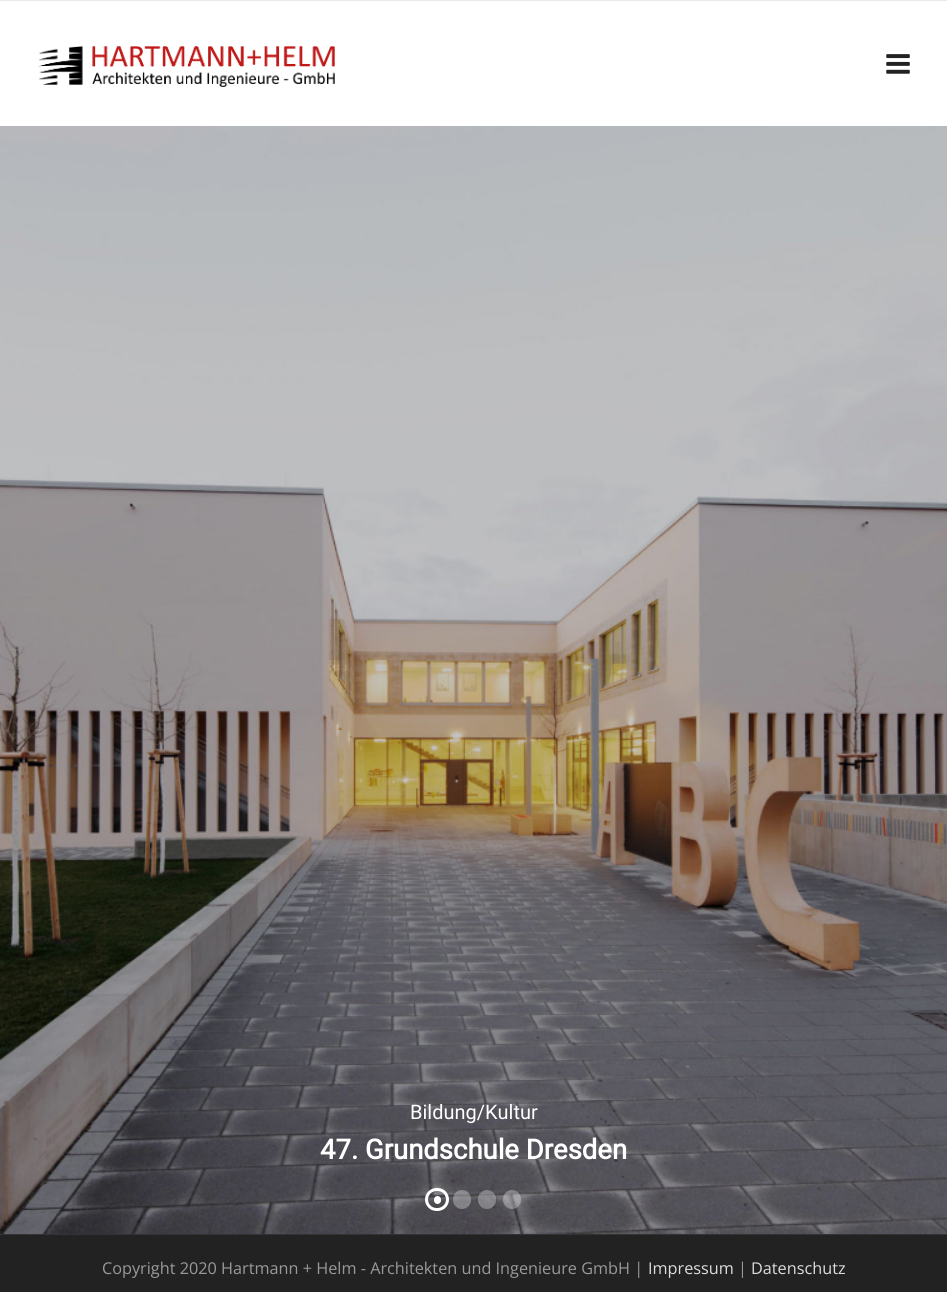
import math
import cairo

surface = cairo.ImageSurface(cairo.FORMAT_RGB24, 947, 1292)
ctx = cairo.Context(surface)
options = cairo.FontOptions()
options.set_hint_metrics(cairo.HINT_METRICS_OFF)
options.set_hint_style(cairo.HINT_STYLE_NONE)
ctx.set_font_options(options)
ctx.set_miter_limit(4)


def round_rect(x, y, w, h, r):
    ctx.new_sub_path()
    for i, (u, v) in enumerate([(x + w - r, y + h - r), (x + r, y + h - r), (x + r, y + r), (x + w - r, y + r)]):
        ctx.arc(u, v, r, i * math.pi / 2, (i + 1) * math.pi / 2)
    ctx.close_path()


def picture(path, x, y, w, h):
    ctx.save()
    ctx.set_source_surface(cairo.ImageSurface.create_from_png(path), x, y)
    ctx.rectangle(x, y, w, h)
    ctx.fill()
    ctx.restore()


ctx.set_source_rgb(0.914, 0.914, 0.914)
ctx.paint()
ctx.set_source_rgb(1, 1, 1)
ctx.rectangle(0, 1, 947, 125)
ctx.fill()
picture("img1.png", 38, 46, 297, 41)
picture("img2.png", 886, 54, 24, 20)
picture("img3.png", 0, 126, 947, 1108)
ctx.select_font_face("Roboto")
ctx.set_font_size(20)
ctx.move_to(410, 1119)
ctx.show_text("Bildung/Kultur")
ctx.select_font_face("Roboto", cairo.FONT_SLANT_NORMAL, cairo.FONT_WEIGHT_BOLD)
ctx.set_font_size(27.5)
ctx.move_to(320, 1159)
ctx.show_text("47. Grundschule Dresden")
round_rect(426.5, 1189.5, 21, 20, 10)
ctx.set_line_width(3)
ctx.stroke()
round_rect(434, 1196, 7, 8, 3.5)
ctx.fill()
ctx.set_source_rgba(1, 1, 1, 0.3)
round_rect(453, 1190, 18, 19, 9)
ctx.fill()
round_rect(478, 1190, 18, 19, 9)
ctx.fill()
round_rect(503, 1190, 18, 19, 9)
ctx.fill()
ctx.set_source_rgb(0.133, 0.133, 0.133)
ctx.rectangle(0, 1235, 947, 57)
ctx.fill()
ctx.set_source_rgb(0.2, 0.2, 0.2)
ctx.rectangle(0, 1234, 947, 1)
ctx.fill()
ctx.select_font_face("Open Sans")
ctx.set_font_size(16.25)
ctx.set_source_rgb(0.6, 0.6, 0.6)
ctx.move_to(102, 1274)
ctx.show_text("Copyright 2020 Hartmann + Helm - Architekten und Ingenieure GmbH |")
ctx.set_source_rgb(0.867, 0.867, 0.867)
ctx.move_to(648, 1274)
ctx.show_text("Impressum")
ctx.set_source_rgb(0.6, 0.6, 0.6)
ctx.move_to(738, 1274)
ctx.show_text("|")
ctx.set_source_rgb(0.867, 0.867, 0.867)
ctx.move_to(751, 1274)
ctx.show_text("Datenschutz")
surface.write_to_png("page.png")
